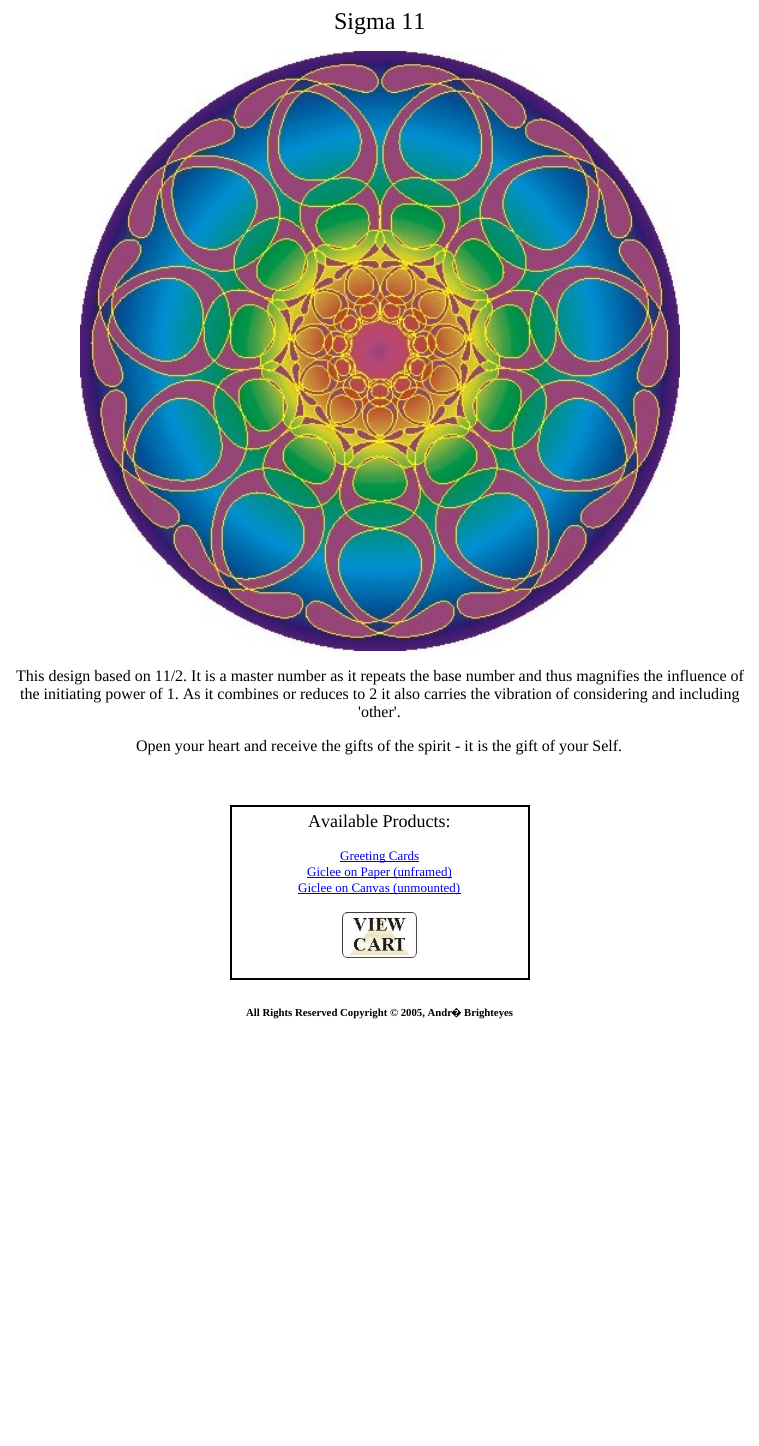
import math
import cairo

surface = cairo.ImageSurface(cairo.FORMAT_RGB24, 759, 1446)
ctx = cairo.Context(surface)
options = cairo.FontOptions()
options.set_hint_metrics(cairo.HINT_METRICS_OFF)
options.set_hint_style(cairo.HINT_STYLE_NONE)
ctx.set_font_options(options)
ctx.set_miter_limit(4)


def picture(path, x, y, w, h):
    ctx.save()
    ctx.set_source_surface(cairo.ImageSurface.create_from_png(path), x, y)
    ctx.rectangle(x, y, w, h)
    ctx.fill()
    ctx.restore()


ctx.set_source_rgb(1, 1, 1)
ctx.paint()
ctx.select_font_face("Liberation Serif")
ctx.set_font_size(24)
ctx.set_source_rgb(0, 0, 0)
ctx.move_to(334, 29)
ctx.show_text("Sigma 11")
picture("img1.png", 80, 51, 300, 300)
picture("img2.png", 380, 51, 300, 300)
picture("img3.png", 80, 351, 300, 300)
picture("img4.png", 380, 351, 300, 300)
ctx.set_font_size(16)
ctx.move_to(16, 681)
ctx.show_text("This design based on 11/2. It is a master number as it repeats the base number and thus magnifies the influence of")
ctx.move_to(20, 699)
ctx.show_text("the initiating power of 1. As it combines or reduces to 2 it also carries the vibration of considering and including")
ctx.move_to(358, 717)
ctx.show_text("'other'.")
ctx.move_to(136, 751)
ctx.show_text("Open your heart and receive the gifts of the spirit - it is the gift of your Self.")
ctx.rectangle(230.5, 805.5, 299, 174)
ctx.set_line_width(1)
ctx.stroke()
ctx.rectangle(231.5, 806.5, 297, 172)
ctx.stroke()
ctx.set_font_size(18)
ctx.move_to(308, 827)
ctx.show_text("Available Products:")
ctx.set_source_rgb(0, 0, 0.933)
ctx.rectangle(340, 861, 79, 1)
ctx.fill()
ctx.set_font_size(13)
ctx.move_to(340, 860)
ctx.show_text("Greeting Cards")
ctx.rectangle(307, 877, 145, 1)
ctx.fill()
ctx.move_to(307, 876)
ctx.show_text("Giclee on Paper (unframed)")
ctx.rectangle(298, 893, 163, 1)
ctx.fill()
ctx.move_to(298, 892)
ctx.show_text("Giclee on Canvas (unmounted)")
picture("img5.png", 342, 912, 75, 46)
ctx.select_font_face("Liberation Serif", cairo.FONT_SLANT_NORMAL, cairo.FONT_WEIGHT_BOLD)
ctx.set_font_size(10.75)
ctx.set_source_rgb(0, 0, 0)
ctx.move_to(246, 1016)
ctx.show_text("All Rights Reserved Copyright © 2005, Andr")
ctx.select_font_face("Noto Sans", cairo.FONT_SLANT_NORMAL, cairo.FONT_WEIGHT_BOLD)
ctx.move_to(451, 1016)
ctx.show_text("�")
ctx.select_font_face("Liberation Serif", cairo.FONT_SLANT_NORMAL, cairo.FONT_WEIGHT_BOLD)
ctx.move_to(464, 1016)
ctx.show_text("Brighteyes")
surface.write_to_png("page.png")
